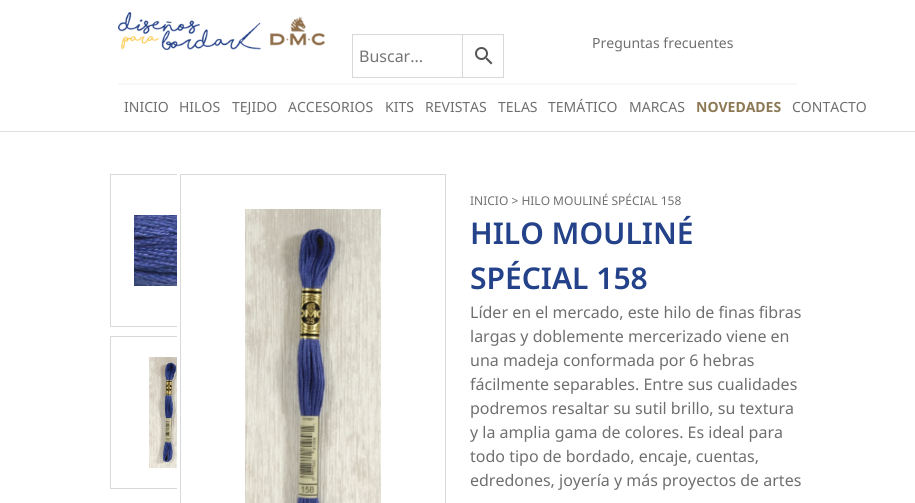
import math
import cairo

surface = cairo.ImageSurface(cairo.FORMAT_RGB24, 915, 503)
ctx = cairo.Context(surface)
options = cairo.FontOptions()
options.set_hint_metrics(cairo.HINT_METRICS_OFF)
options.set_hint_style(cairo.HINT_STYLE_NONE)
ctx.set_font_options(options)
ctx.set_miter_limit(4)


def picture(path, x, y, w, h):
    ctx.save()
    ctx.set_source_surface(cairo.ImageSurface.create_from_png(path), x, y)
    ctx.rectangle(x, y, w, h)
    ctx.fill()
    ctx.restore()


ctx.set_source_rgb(1, 1, 1)
ctx.paint()
picture("img1.png", 118, 12, 208, 38)
ctx.select_font_face("Noto Sans")
ctx.set_font_size(14)
ctx.set_source_rgb(0.435, 0.435, 0.435)
ctx.move_to(592, 48)
ctx.show_text("Preguntas frecuentes")
ctx.rectangle(462.5, 34.5, 41, 43)
ctx.set_source_rgb(0.847, 0.847, 0.847)
ctx.set_line_width(1)
ctx.stroke()
ctx.rectangle(352.5, 34.5, 110, 43)
ctx.stroke()
ctx.set_font_size(16)
ctx.set_source_rgb(0.459, 0.459, 0.459)
ctx.move_to(359, 62)
ctx.show_text("Buscar...")
picture("img2.png", 475, 47, 18, 18)
ctx.set_source_rgb(0.969, 0.969, 0.969)
ctx.rectangle(118, 83, 679, 2)
ctx.fill()
ctx.set_font_size(14)
ctx.set_source_rgb(0.435, 0.435, 0.435)
ctx.move_to(124, 112)
ctx.show_text("INICIO")
ctx.move_to(179, 112)
ctx.show_text("HILOS")
ctx.move_to(232, 112)
ctx.show_text("TEJIDO")
ctx.move_to(288, 112)
ctx.show_text("ACCESORIOS")
ctx.move_to(385, 112)
ctx.show_text("KITS")
ctx.move_to(425, 112)
ctx.show_text("REVISTAS")
ctx.move_to(498, 112)
ctx.show_text("TELAS")
ctx.move_to(548, 112)
ctx.show_text("TEMÁTICO")
ctx.move_to(629, 112)
ctx.show_text("MARCAS")
ctx.select_font_face("Noto Sans", cairo.FONT_SLANT_NORMAL, cairo.FONT_WEIGHT_BOLD)
ctx.set_source_rgb(0.553, 0.475, 0.333)
ctx.move_to(696, 112)
ctx.show_text("NOVEDADES")
ctx.select_font_face("Noto Sans")
ctx.set_source_rgb(0.435, 0.435, 0.435)
ctx.move_to(792, 112)
ctx.show_text("CONTACTO")
ctx.set_source_rgb(0.875, 0.875, 0.875)
ctx.rectangle(0, 131, 915, 1)
ctx.fill()
ctx.rectangle(180.5, 174.5, 265, 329)
ctx.set_source_rgb(0.847, 0.847, 0.847)
ctx.stroke()
ctx.save()
ctx.rectangle(110, 174, 67, 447)
ctx.clip()
ctx.rectangle(110.5, 174.5, 119, 152)
ctx.stroke()
ctx.restore()
picture("img3.png", 134, 215, 43, 71)
ctx.save()
ctx.rectangle(110, 174, 67, 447)
ctx.clip()
ctx.rectangle(110.5, 336.5, 119, 152)
ctx.stroke()
ctx.restore()
picture("img4.png", 149, 357, 28, 111)
picture("img5.png", 245, 209, 136, 294)
ctx.set_font_size(12)
ctx.set_source_rgb(0.435, 0.435, 0.435)
ctx.move_to(470, 205)
ctx.show_text("INICIO > HILO MOULINÉ SPÉCIAL 158")
ctx.select_font_face("Noto Sans SemiBold")
ctx.set_font_size(30)
ctx.set_source_rgb(0.141, 0.259, 0.537)
ctx.move_to(470, 244)
ctx.show_text("HILO MOULINÉ")
ctx.move_to(470, 289)
ctx.show_text("SPÉCIAL 158")
ctx.select_font_face("Noto Sans")
ctx.set_font_size(16)
ctx.set_source_rgb(0.435, 0.435, 0.435)
ctx.move_to(470, 318)
ctx.show_text("Líder en el mercado, este hilo de finas fibras")
ctx.move_to(470, 342)
ctx.show_text("largas y doblemente mercerizado viene en")
ctx.move_to(470, 366)
ctx.show_text("una madeja conformada por 6 hebras")
ctx.move_to(470, 390)
ctx.show_text("fácilmente separables. Entre sus cualidades")
ctx.move_to(470, 414)
ctx.show_text("podremos resaltar su sutil brillo, su textura")
ctx.move_to(470, 438)
ctx.show_text("y la amplia gama de colores. Es ideal para")
ctx.move_to(470, 462)
ctx.show_text("todo tipo de bordado, encaje, cuentas,")
ctx.move_to(470, 486)
ctx.show_text("edredones, joyería y más proyectos de artes")
surface.write_to_png("page.png")
